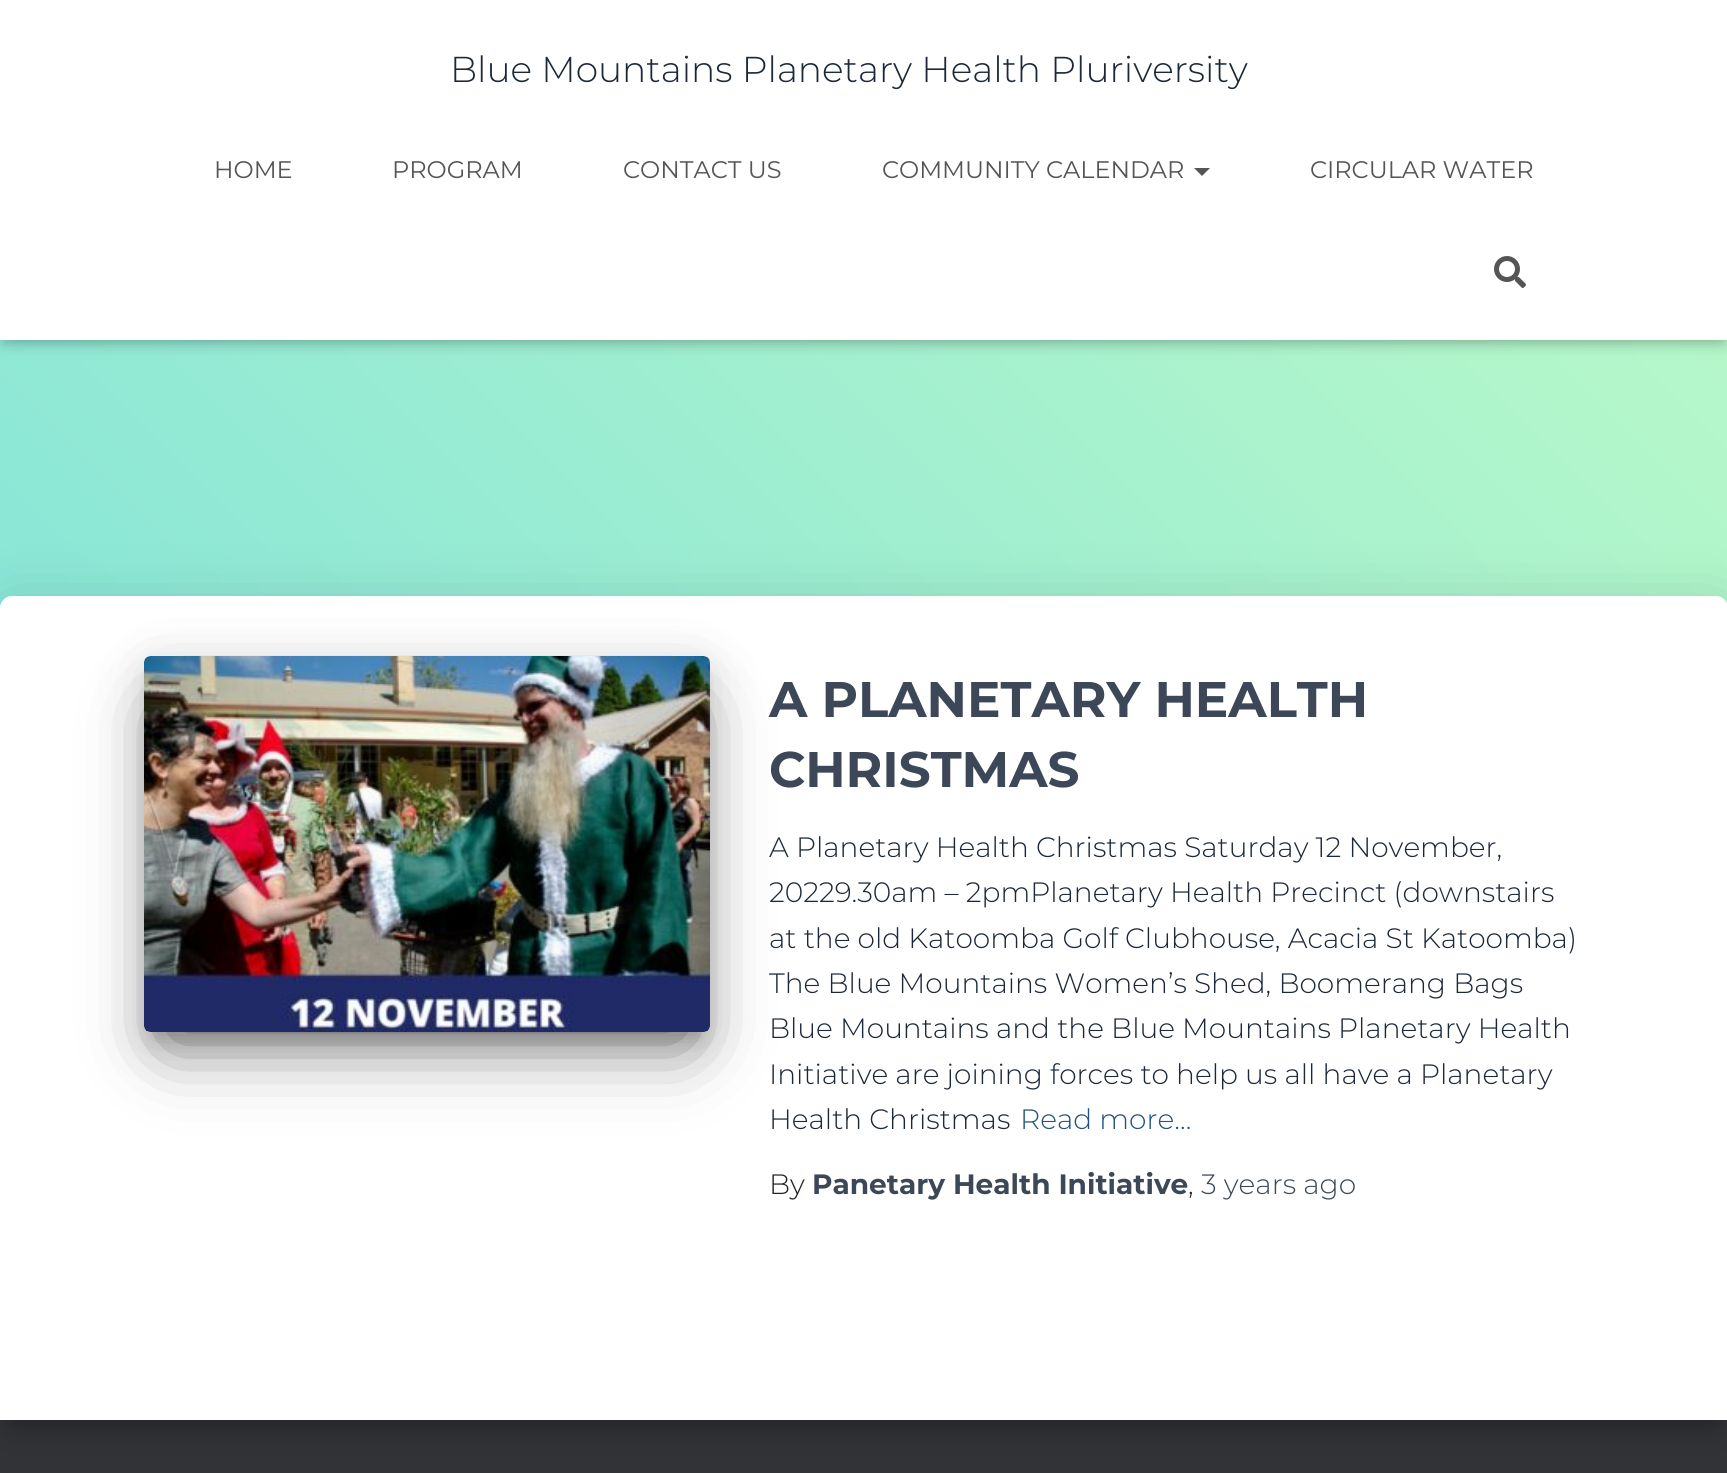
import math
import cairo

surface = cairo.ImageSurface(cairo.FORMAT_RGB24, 1727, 1473)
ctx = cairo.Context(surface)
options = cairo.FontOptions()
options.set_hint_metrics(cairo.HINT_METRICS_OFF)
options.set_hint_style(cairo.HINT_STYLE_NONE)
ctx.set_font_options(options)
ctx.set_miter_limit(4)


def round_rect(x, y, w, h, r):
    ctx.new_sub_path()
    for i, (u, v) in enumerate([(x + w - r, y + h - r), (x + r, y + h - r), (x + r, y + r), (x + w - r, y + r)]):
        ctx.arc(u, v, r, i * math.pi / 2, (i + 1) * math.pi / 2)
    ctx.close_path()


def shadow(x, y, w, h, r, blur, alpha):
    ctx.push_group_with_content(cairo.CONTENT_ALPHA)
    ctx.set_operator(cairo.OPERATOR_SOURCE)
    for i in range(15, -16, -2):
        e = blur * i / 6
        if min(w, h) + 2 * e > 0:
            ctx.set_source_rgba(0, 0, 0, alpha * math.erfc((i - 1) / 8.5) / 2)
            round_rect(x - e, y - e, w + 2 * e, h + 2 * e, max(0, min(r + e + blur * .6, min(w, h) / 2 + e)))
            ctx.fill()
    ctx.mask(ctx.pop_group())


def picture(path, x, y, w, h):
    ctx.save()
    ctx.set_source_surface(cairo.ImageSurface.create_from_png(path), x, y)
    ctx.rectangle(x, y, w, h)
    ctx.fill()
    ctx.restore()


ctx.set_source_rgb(0.196, 0.204, 0.216)
ctx.paint()
gradient = cairo.LinearGradient(103, 872, 1625, -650)
gradient.add_color_stop_rgba(0, 0.529, 0.898, 0.847, 1)
gradient.add_color_stop_rgba(1, 0.788, 1, 0.765, 1)
ctx.set_source(gradient)
ctx.rectangle(0, 340, 1727, 268)
ctx.fill()
ctx.set_source_rgb(0, 0, 0)
shadow(4, 12, 1720, 332, 0, 5, 0.1)
shadow(0, 2, 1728, 340, 0, 10, 0.12)
shadow(12, 14, 1704, 316, 0, 10, 0.42)
ctx.set_source_rgb(1, 1, 1)
ctx.rectangle(0, 0, 1727, 340)
ctx.fill()
ctx.select_font_face("Montserrat Light")
ctx.set_font_size(36)
ctx.set_source_rgb(0.11, 0.157, 0.22)
ctx.move_to(450, 82)
ctx.show_text("Blue Mountains Planetary Health Pluriversity")
ctx.select_font_face("Montserrat")
ctx.set_font_size(24)
ctx.set_source_rgb(0.333, 0.333, 0.333)
ctx.move_to(214, 178)
ctx.show_text("HOME")
ctx.move_to(392, 178)
ctx.show_text("PROGRAM")
ctx.move_to(623, 178)
ctx.show_text("CONTACT US")
ctx.move_to(882, 178)
ctx.show_text("COMMUNITY CALENDAR")
ctx.new_path()
ctx.move_to(1194, 168)
ctx.line_to(1210, 168)
ctx.line_to(1202, 176)
ctx.close_path()
ctx.fill()
ctx.move_to(1310, 178)
ctx.show_text("CIRCULAR WATER")
picture("img1.png", 1494, 256, 32, 32)
ctx.set_source_rgb(0, 0, 0)
shadow(10, 622, 1708, 804, 2, 10, 0.2)
shadow(-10, 598, 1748, 844, 22, 30, 0.12)
ctx.set_source_rgb(1, 1, 1)
ctx.new_path()
ctx.move_to(12, 596)
ctx.line_to(1716, 596)
ctx.curve_to(1722.5, 596, 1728, 601.5, 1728, 608)
ctx.line_to(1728, 1420)
ctx.line_to(0, 1420)
ctx.line_to(0, 608)
ctx.curve_to(0, 601.5, 5.5, 596, 12, 596)
ctx.close_path()
ctx.fill()
ctx.set_source_rgb(0, 0, 0)
shadow(154, 682, 546, 356, 0, 10, 0.2)
shadow(144, 664, 566, 376, 6, 25, 0.12)
shadow(168, 712, 518, 328, 0, 38, 0.56)
picture("img2.png", 144, 656, 566, 376)
ctx.select_font_face("Montserrat", cairo.FONT_SLANT_NORMAL, cairo.FONT_WEIGHT_BOLD)
ctx.set_font_size(50)
ctx.set_source_rgb(0.235, 0.282, 0.345)
ctx.move_to(769, 717)
ctx.show_text("A PLANETARY HEALTH")
ctx.move_to(769, 787)
ctx.show_text("CHRISTMAS")
ctx.select_font_face("Montserrat Light")
ctx.set_font_size(28)
ctx.set_source_rgb(0.11, 0.157, 0.22)
ctx.move_to(769, 857)
ctx.show_text("A Planetary Health Christmas Saturday 12 November,")
ctx.move_to(769, 902)
ctx.show_text("20229.30am – 2pmPlanetary Health Precinct (downstairs")
ctx.move_to(769, 948)
ctx.show_text("at the old Katoomba Golf Clubhouse, Acacia St Katoomba)")
ctx.move_to(769, 993)
ctx.show_text("The Blue Mountains Women’s Shed, Boomerang Bags")
ctx.move_to(769, 1038)
ctx.show_text("Blue Mountains and the Blue Mountains Planetary Health")
ctx.move_to(769, 1084)
ctx.show_text("Initiative are joining forces to help us all have a Planetary")
ctx.move_to(769, 1129)
ctx.show_text("Health Christmas")
ctx.set_source_rgb(0.137, 0.322, 0.486)
ctx.move_to(1020, 1129)
ctx.show_text("Read more…")
ctx.set_source_rgb(0.129, 0.129, 0.129)
ctx.move_to(769, 1194)
ctx.show_text("By")
ctx.select_font_face("Montserrat", cairo.FONT_SLANT_NORMAL, cairo.FONT_WEIGHT_BOLD)
ctx.set_source_rgb(0.235, 0.282, 0.345)
ctx.move_to(812, 1194)
ctx.show_text("Panetary Health Initiative")
ctx.select_font_face("Montserrat Light")
ctx.set_source_rgb(0.129, 0.129, 0.129)
ctx.move_to(1188, 1194)
ctx.show_text(",")
ctx.set_source_rgb(0.235, 0.282, 0.345)
ctx.move_to(1201, 1194)
ctx.show_text("3 years ago")
surface.write_to_png("page.png")
